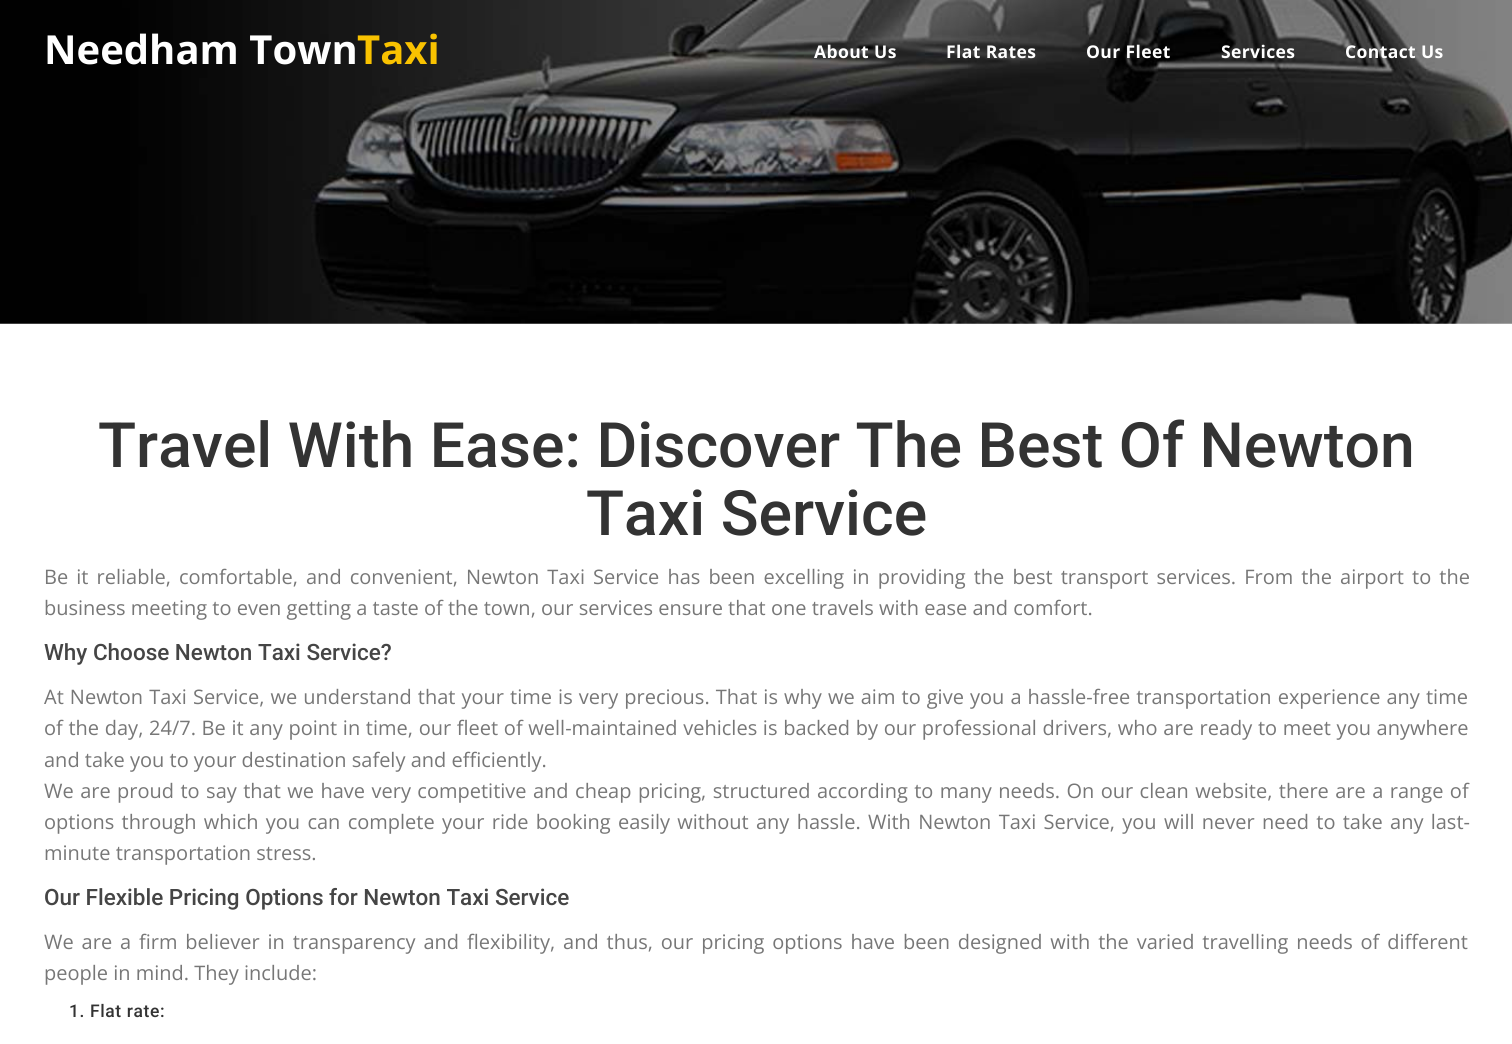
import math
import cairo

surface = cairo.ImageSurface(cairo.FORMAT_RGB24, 1512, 1044)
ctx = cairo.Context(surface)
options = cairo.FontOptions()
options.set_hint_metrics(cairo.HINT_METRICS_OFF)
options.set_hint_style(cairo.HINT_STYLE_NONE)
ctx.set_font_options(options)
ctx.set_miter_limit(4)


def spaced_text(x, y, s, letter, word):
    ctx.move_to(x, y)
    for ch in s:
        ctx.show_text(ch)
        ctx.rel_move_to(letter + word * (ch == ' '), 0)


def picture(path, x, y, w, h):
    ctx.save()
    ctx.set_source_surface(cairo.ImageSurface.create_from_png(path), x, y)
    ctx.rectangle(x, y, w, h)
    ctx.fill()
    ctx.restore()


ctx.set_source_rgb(1, 1, 1)
ctx.paint()
picture("img1.png", 0, 0, 1512, 324)
ctx.select_font_face("Open Sans", cairo.FONT_SLANT_NORMAL, cairo.FONT_WEIGHT_BOLD)
ctx.set_font_size(40)
ctx.set_source_rgb(1, 1, 1)
ctx.move_to(44, 64)
ctx.show_text("Needham Town")
ctx.set_source_rgb(0.976, 0.761, 0)
ctx.move_to(357, 64)
ctx.show_text("Taxi")
ctx.set_font_size(17.5)
ctx.set_source_rgb(1, 1, 1)
spaced_text(814, 58, "About Us", 0.4, 0)
spaced_text(946, 58, "Flat Rates", 0.4, 0)
spaced_text(1086, 58, "Our Fleet", 0.4, 0)
spaced_text(1221, 58, "Services", 0.4, 0)
spaced_text(1345, 58, "Contact Us", 0.4, 0)
ctx.select_font_face("Roboto Medium")
ctx.set_font_size(62.5)
ctx.set_source_rgb(0.2, 0.2, 0.2)
ctx.move_to(98, 467)
ctx.show_text("Travel With Ease: Discover The Best Of Newton")
ctx.move_to(586, 535)
ctx.show_text("Taxi Service")
ctx.select_font_face("Open Sans")
ctx.set_font_size(20)
ctx.set_source_rgb(0.467, 0.467, 0.467)
spaced_text(44, 584, "Be it reliable, comfortable, and convenient, Newton Taxi Service has been excelling in providing the best transport services. From the airport to the", 0, 2.9)
ctx.move_to(44, 615)
ctx.show_text("business meeting to even getting a taste of the town, our services ensure that one travels with ease and comfort.")
ctx.select_font_face("Roboto Medium")
ctx.set_font_size(22.5)
ctx.set_source_rgb(0.271, 0.271, 0.271)
ctx.move_to(44, 660)
ctx.show_text("Why Choose Newton Taxi Service?")
ctx.select_font_face("Open Sans")
ctx.set_font_size(20)
ctx.set_source_rgb(0.467, 0.467, 0.467)
spaced_text(44, 704, "At Newton Taxi Service, we understand that your time is very precious. That is why we aim to give you a hassle-free transportation experience any time", 0, 0.9)
spaced_text(44, 735, "of the day, 24/7. Be it any point in time, our fleet of well-maintained vehicles is backed by our professional drivers, who are ready to meet you anywhere", 0, 0.5)
ctx.move_to(44, 767)
ctx.show_text("and take you to your destination safely and efficiently.")
spaced_text(44, 798, "We are proud to say that we have very competitive and cheap pricing, structured according to many needs. On our clean website, there are a range of", 0, 1.25)
spaced_text(44, 829, "options through which you can complete your ride booking easily without any hassle. With Newton Taxi Service, you will never need to take any last-", 0, 2.1)
ctx.move_to(44, 860)
ctx.show_text("minute transportation stress.")
ctx.select_font_face("Roboto Medium")
ctx.set_font_size(22.5)
ctx.set_source_rgb(0.271, 0.271, 0.271)
ctx.move_to(44, 905)
ctx.show_text("Our Flexible Pricing Options for Newton Taxi Service")
ctx.select_font_face("Open Sans")
ctx.set_font_size(20)
ctx.set_source_rgb(0.467, 0.467, 0.467)
spaced_text(44, 949, "We are a firm believer in transparency and flexibility, and thus, our pricing options have been designed with the varied travelling needs of different", 0, 2.7)
ctx.move_to(44, 980)
ctx.show_text("people in mind. They include:")
ctx.select_font_face("Roboto Medium")
ctx.set_font_size(17.5)
ctx.set_source_rgb(0.2, 0.2, 0.2)
spaced_text(69, 1017, "1. Flat rate:", 0.6, 0)
surface.write_to_png("page.png")
